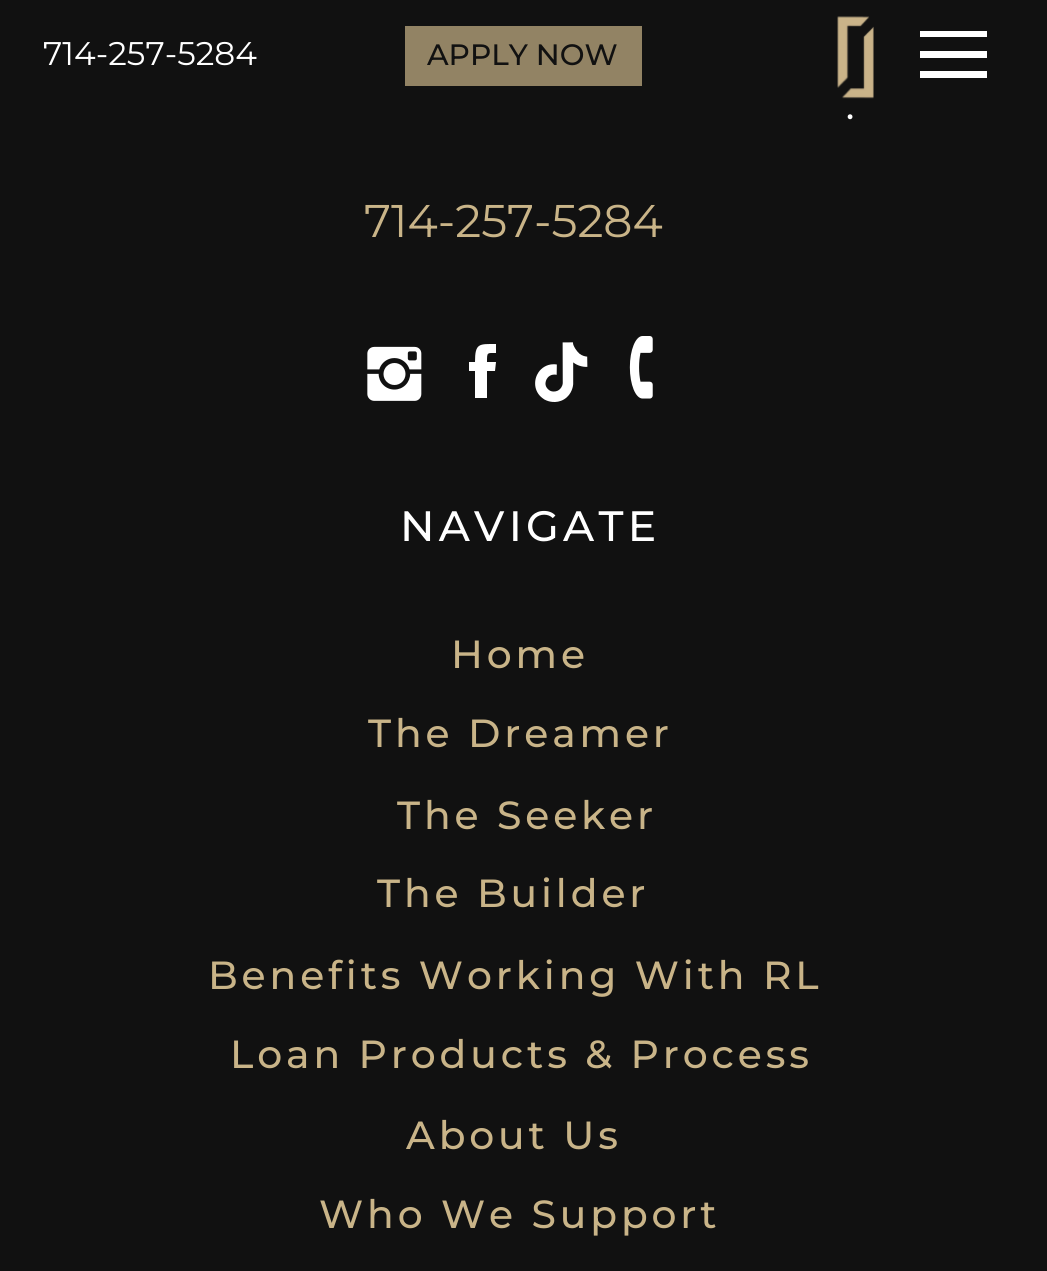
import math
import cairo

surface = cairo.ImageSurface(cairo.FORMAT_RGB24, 1047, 1271)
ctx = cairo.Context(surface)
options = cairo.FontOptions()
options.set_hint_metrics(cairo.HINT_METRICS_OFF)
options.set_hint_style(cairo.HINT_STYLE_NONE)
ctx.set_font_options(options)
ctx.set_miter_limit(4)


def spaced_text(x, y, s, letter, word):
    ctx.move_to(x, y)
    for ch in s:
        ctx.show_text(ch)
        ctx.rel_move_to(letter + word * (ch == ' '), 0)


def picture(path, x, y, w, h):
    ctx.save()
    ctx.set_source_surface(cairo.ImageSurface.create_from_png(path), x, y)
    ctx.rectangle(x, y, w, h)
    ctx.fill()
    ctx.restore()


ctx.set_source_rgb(0.067, 0.067, 0.067)
ctx.paint()
ctx.select_font_face("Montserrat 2 Thin")
ctx.set_font_size(32.75)
ctx.set_source_rgb(1, 1, 1)
ctx.move_to(43, 65)
ctx.show_text("714-257-5284")
ctx.set_source_rgb(0.573, 0.514, 0.392)
ctx.rectangle(405, 26, 237, 60)
ctx.fill()
picture("img1.png", 837, 16, 37, 83)
ctx.set_source_rgb(1, 1, 1)
ctx.new_path()
ctx.move_to(920, 51)
ctx.line_to(987, 51)
ctx.line_to(987, 58)
ctx.line_to(920, 58)
ctx.close_path()
ctx.move_to(920, 31)
ctx.line_to(987, 31)
ctx.line_to(987, 37)
ctx.line_to(920, 37)
ctx.close_path()
ctx.move_to(920, 71)
ctx.line_to(987, 71)
ctx.line_to(987, 78)
ctx.line_to(920, 78)
ctx.close_path()
ctx.fill()
ctx.select_font_face("Montserrat Thin")
ctx.set_font_size(29.5)
ctx.set_source_rgb(0.067, 0.067, 0.067)
ctx.move_to(427, 65)
ctx.show_text("APPLY NOW")
ctx.set_font_size(36)
ctx.set_source_rgb(1, 1, 1)
spaced_text(846, 119, ".", 4, 0)
ctx.select_font_face("Montserrat 2 Thin")
ctx.set_font_size(45.75)
ctx.set_source_rgb(0.788, 0.706, 0.533)
ctx.move_to(364, 237)
ctx.show_text("714-257-5284")
picture("img2.png", 367, 346, 55, 55)
ctx.set_source_rgb(1, 1, 1)
ctx.new_path()
ctx.move_to(487, 362)
ctx.curve_to(487, 352, 487, 353, 496, 353)
ctx.line_to(496, 344)
ctx.curve_to(479, 344, 475, 343, 475, 362)
ctx.line_to(469, 362)
ctx.line_to(469, 371)
ctx.line_to(475, 371)
ctx.line_to(475, 398)
ctx.line_to(487, 398)
ctx.line_to(487, 371)
ctx.line_to(495, 371)
ctx.line_to(496, 362)
ctx.close_path()
ctx.fill()
picture("img3.png", 535, 342, 53, 60)
picture("img4.png", 629, 336, 24, 63)
ctx.select_font_face("Montserrat Thin")
ctx.set_font_size(42.5)
spaced_text(400, 541, "NAVIGATE", 4.25, 0)
ctx.set_font_size(39.25)
ctx.set_source_rgb(0.788, 0.706, 0.533)
spaced_text(451, 668, "Home", 3.9, 0)
spaced_text(368, 747, "The Dreamer", 3.9, 0)
spaced_text(397, 829, "The Seeker", 3.9, 0)
spaced_text(377, 907, "The Builder", 3.9, 0)
spaced_text(208, 989, "Benefits Working With RL", 3.9, 0)
spaced_text(230, 1068, "Loan Products & Process", 3.9, 0)
spaced_text(406, 1149, "About Us", 3.9, 0)
spaced_text(319, 1228, "Who We Support", 3.9, 0)
surface.write_to_png("page.png")
